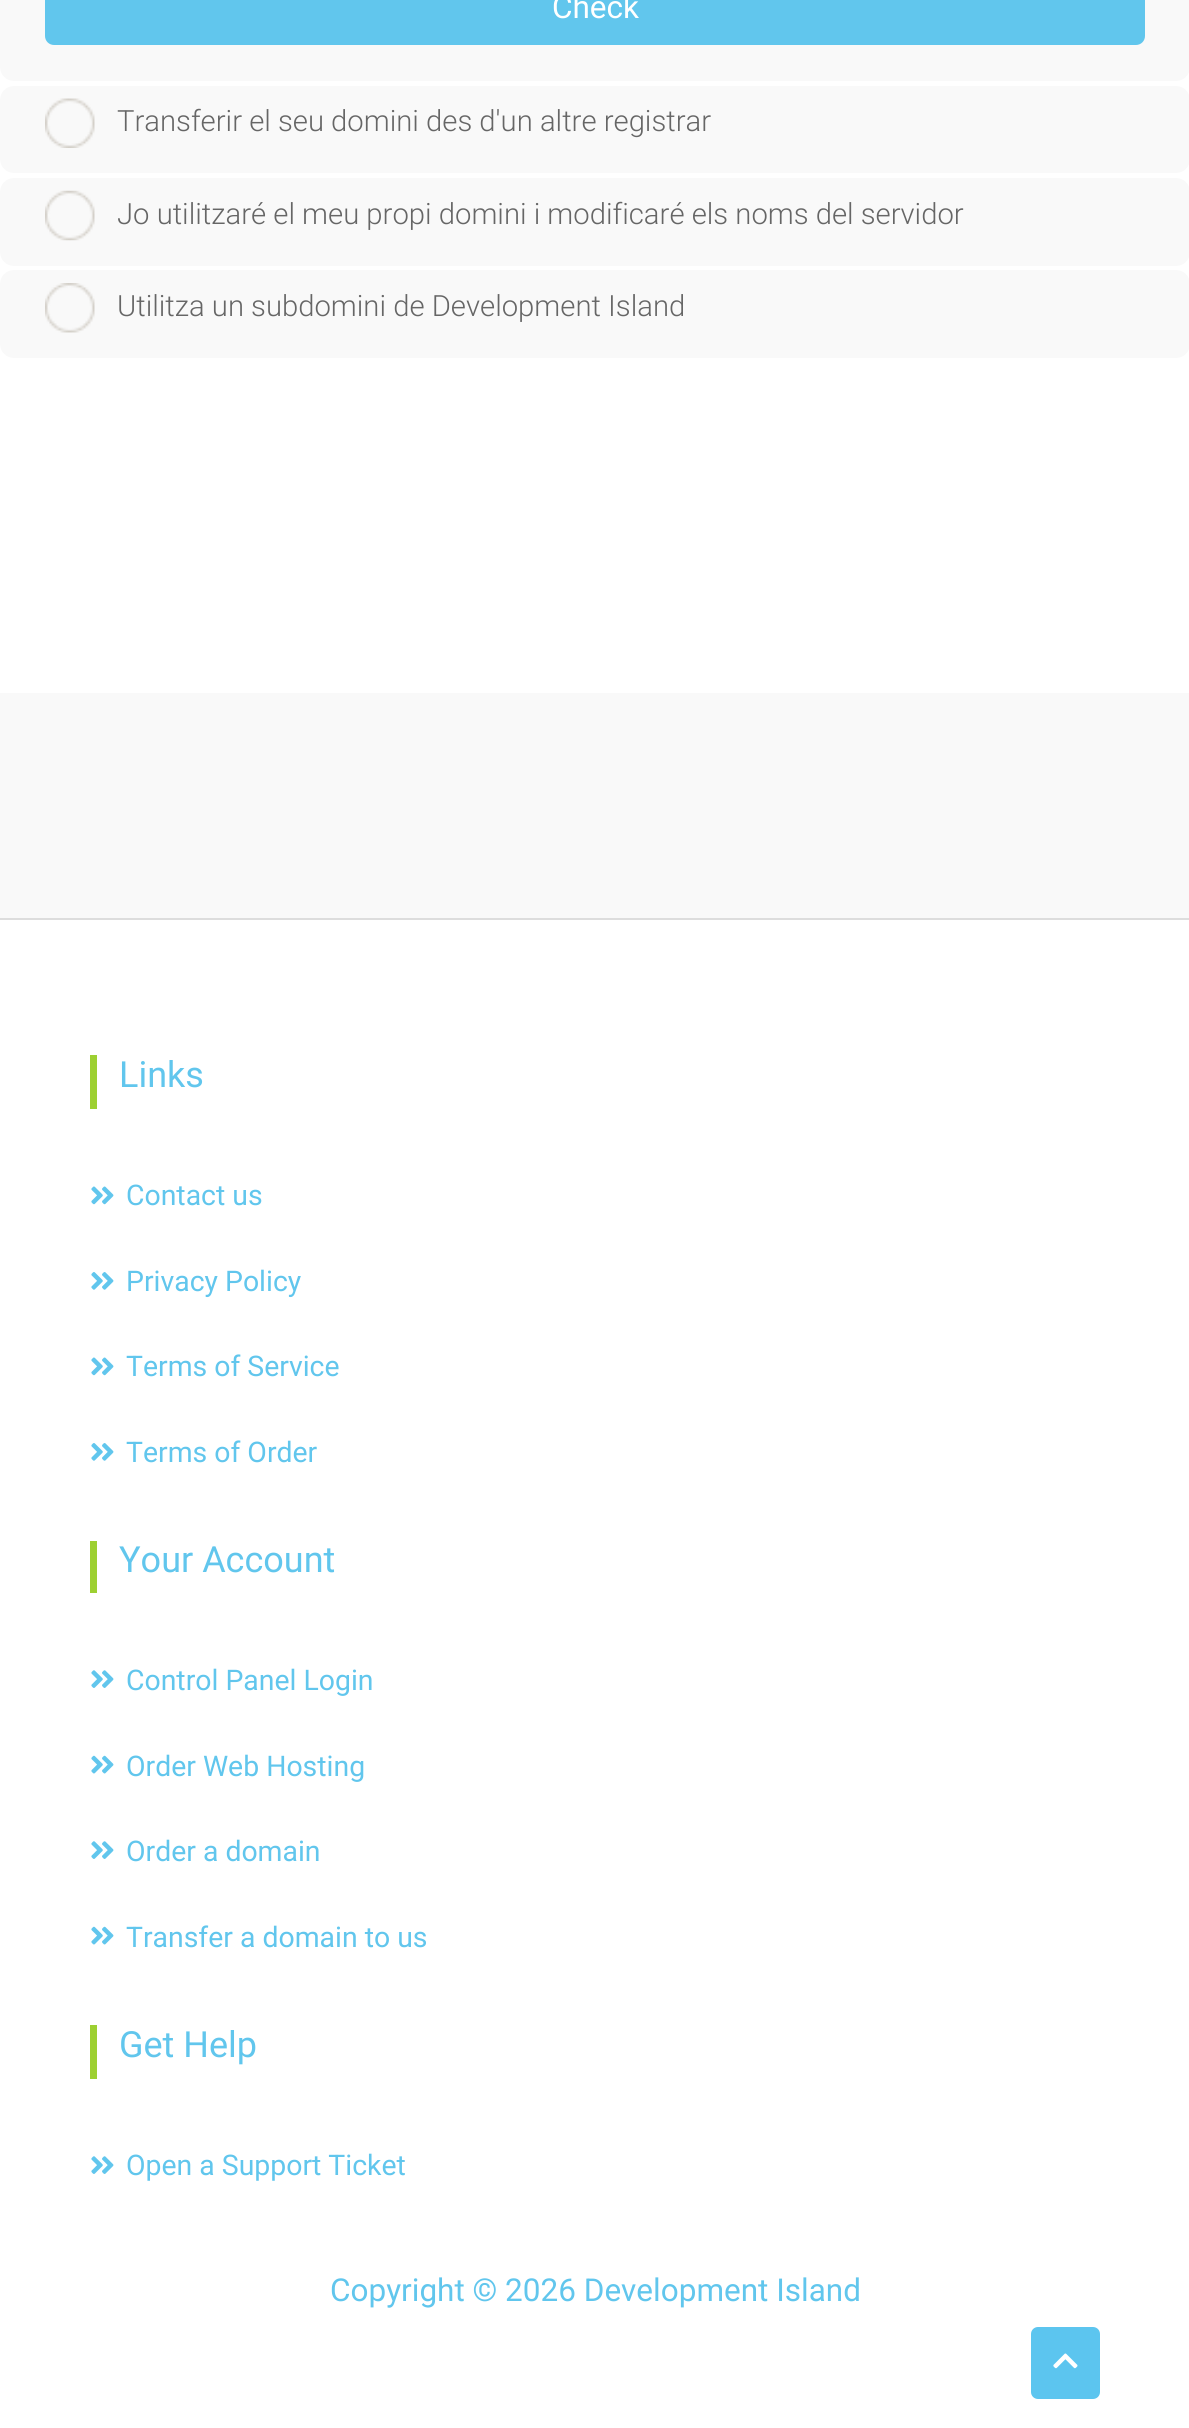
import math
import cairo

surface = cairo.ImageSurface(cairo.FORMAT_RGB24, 1189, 2428)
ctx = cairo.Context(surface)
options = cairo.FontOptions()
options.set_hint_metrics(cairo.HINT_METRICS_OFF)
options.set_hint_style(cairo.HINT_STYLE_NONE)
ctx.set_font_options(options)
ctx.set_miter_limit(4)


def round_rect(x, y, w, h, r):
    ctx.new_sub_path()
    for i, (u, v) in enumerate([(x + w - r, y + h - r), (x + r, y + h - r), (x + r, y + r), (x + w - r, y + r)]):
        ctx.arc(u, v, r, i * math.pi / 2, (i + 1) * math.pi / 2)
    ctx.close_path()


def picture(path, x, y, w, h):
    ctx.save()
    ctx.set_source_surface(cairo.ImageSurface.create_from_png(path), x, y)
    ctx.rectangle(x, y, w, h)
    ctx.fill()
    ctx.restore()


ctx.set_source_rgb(0.973, 0.973, 0.973)
ctx.paint()
ctx.set_source_rgb(1, 1, 1)
ctx.rectangle(0, 67, 1189, 626)
ctx.fill()
ctx.set_source_rgb(0.973, 0.973, 0.973)
round_rect(0, -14, 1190, 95, 14)
ctx.fill()
ctx.set_source_rgb(0.38, 0.776, 0.929)
round_rect(46, -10, 1098, 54, 8)
ctx.fill_preserve()
ctx.stroke()
ctx.select_font_face("Roboto")
ctx.set_font_size(31.5)
ctx.set_source_rgb(1, 1, 1)
ctx.move_to(552, 18)
ctx.show_text("Check")
ctx.set_source_rgb(0.973, 0.973, 0.973)
round_rect(0, 86, 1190, 87, 14)
ctx.fill()
picture("img1.png", 45, 98, 50, 50)
ctx.select_font_face("Roboto Light")
ctx.set_font_size(29.25)
ctx.set_source_rgb(0.4, 0.4, 0.4)
ctx.move_to(117, 131)
ctx.show_text("Transferir el seu domini des d'un altre registrar")
ctx.set_source_rgb(0.973, 0.973, 0.973)
round_rect(0, 178, 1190, 88, 14)
ctx.fill()
picture("img2.png", 45, 190, 50, 51)
ctx.set_source_rgb(0.4, 0.4, 0.4)
ctx.move_to(117, 224)
ctx.show_text("Jo utilitzaré el meu propi domini i modificaré els noms del servidor")
ctx.set_source_rgb(0.973, 0.973, 0.973)
round_rect(0, 270, 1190, 88, 14)
ctx.fill()
picture("img3.png", 45, 283, 50, 50)
ctx.set_source_rgb(0.4, 0.4, 0.4)
ctx.move_to(117, 316)
ctx.show_text("Utilitza un subdomini de Development Island")
ctx.set_source_rgb(1, 1, 1)
ctx.rectangle(0, 920, 1189, 1508)
ctx.fill()
ctx.set_source_rgb(0.867, 0.867, 0.867)
ctx.rectangle(0, 918, 1189, 2)
ctx.fill()
ctx.set_source_rgb(0.616, 0.816, 0.196)
ctx.rectangle(90, 1055, 7, 54)
ctx.fill()
ctx.select_font_face("Roboto")
ctx.set_font_size(36)
ctx.set_source_rgb(0.38, 0.776, 0.929)
ctx.move_to(119, 1087)
ctx.show_text("Links")
picture("img4.png", 91, 1186, 23, 19)
ctx.set_font_size(28.4)
ctx.move_to(126, 1205)
ctx.show_text("Contact us")
picture("img5.png", 91, 1272, 23, 18)
ctx.move_to(126, 1291)
ctx.show_text("Privacy Policy")
picture("img4.png", 91, 1357, 23, 19)
ctx.move_to(126, 1376)
ctx.show_text("Terms of Service")
picture("img5.png", 91, 1443, 23, 18)
ctx.move_to(126, 1462)
ctx.show_text("Terms of Order")
ctx.set_source_rgb(0.616, 0.816, 0.196)
ctx.rectangle(90, 1541, 7, 52)
ctx.fill()
ctx.set_font_size(36)
ctx.set_source_rgb(0.38, 0.776, 0.929)
ctx.move_to(119, 1572)
ctx.show_text("Your Account")
picture("img6.png", 91, 1670, 23, 18)
ctx.set_font_size(28.4)
ctx.move_to(126, 1690)
ctx.show_text("Control Panel Login")
picture("img7.png", 91, 1755, 23, 19)
ctx.move_to(126, 1776)
ctx.show_text("Order Web Hosting")
picture("img6.png", 91, 1841, 23, 18)
ctx.move_to(126, 1861)
ctx.show_text("Order a domain")
picture("img7.png", 91, 1926, 23, 19)
ctx.move_to(126, 1947)
ctx.show_text("Transfer a domain to us")
ctx.set_source_rgb(0.616, 0.816, 0.196)
ctx.rectangle(90, 2025, 7, 54)
ctx.fill()
ctx.set_font_size(36)
ctx.set_source_rgb(0.38, 0.776, 0.929)
ctx.move_to(119, 2057)
ctx.show_text("Get Help")
picture("img6.png", 91, 2156, 23, 18)
ctx.set_font_size(28.4)
ctx.move_to(126, 2175)
ctx.show_text("Open a Support Ticket")
ctx.set_font_size(31.5)
ctx.move_to(330, 2301)
ctx.show_text("Copyright © 2026 Development Island")
ctx.set_source_rgb(0.361, 0.773, 0.937)
round_rect(1031, 2327, 69, 72, 7)
ctx.fill()
picture("img8.png", 1053, 2353, 25, 16)
surface.write_to_png("page.png")
